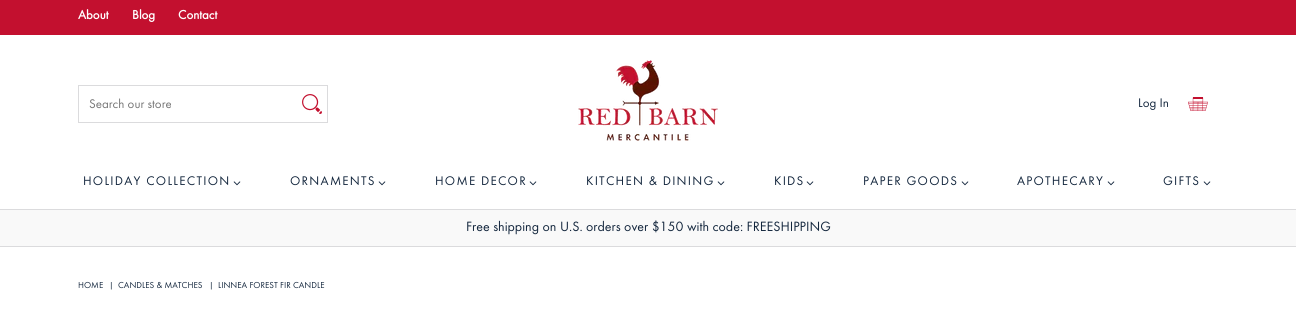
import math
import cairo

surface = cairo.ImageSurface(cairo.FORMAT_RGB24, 1296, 335)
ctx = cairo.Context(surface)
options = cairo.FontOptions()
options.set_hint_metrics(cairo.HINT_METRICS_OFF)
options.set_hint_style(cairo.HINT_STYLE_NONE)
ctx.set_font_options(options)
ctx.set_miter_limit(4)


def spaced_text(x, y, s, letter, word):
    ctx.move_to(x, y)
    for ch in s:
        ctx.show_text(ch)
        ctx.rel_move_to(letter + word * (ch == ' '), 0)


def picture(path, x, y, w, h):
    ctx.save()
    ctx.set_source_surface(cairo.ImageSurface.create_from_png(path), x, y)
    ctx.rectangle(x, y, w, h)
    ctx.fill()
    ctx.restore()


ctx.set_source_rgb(1, 1, 1)
ctx.paint()
ctx.set_source_rgb(0.765, 0.063, 0.184)
ctx.rectangle(0, 0, 1296, 35)
ctx.fill()
ctx.select_font_face("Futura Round", cairo.FONT_SLANT_NORMAL, cairo.FONT_WEIGHT_BOLD)
ctx.set_font_size(13)
ctx.set_source_rgb(1, 1, 1)
ctx.move_to(78, 19)
ctx.show_text("About")
ctx.move_to(132, 19)
ctx.show_text("Blog")
ctx.move_to(178, 19)
ctx.show_text("Contact")
ctx.rectangle(78.5, 85.5, 249, 37)
ctx.set_source_rgb(0.859, 0.859, 0.867)
ctx.set_line_width(1)
ctx.stroke()
ctx.select_font_face("Futura Round")
ctx.set_source_rgb(0.459, 0.459, 0.459)
ctx.move_to(89, 108)
ctx.show_text("Search our store")
picture("img1.png", 302, 94, 20, 20)
picture("img2.png", 578, 60, 140, 81)
ctx.set_source_rgb(0.075, 0.149, 0.239)
ctx.move_to(1138, 107)
ctx.show_text("Log In")
picture("img3.png", 1188, 97, 20, 14)
spaced_text(83, 185, "HOLIDAY COLLECTION", 1.25, 0)
picture("img4.png", 233, 181, 8, 5)
spaced_text(290, 185, "ORNAMENTS", 1.25, 0)
picture("img4.png", 378, 181, 8, 5)
spaced_text(435, 185, "HOME DECOR", 1.25, 0)
picture("img4.png", 529, 181, 8, 5)
spaced_text(586, 185, "KITCHEN & DINING", 1.25, 0)
picture("img4.png", 717, 181, 8, 5)
spaced_text(774, 185, "KIDS", 1.25, 0)
picture("img4.png", 806, 181, 8, 5)
spaced_text(863, 185, "PAPER GOODS", 1.25, 0)
picture("img4.png", 961, 181, 8, 5)
spaced_text(1017, 185, "APOTHECARY", 1.25, 0)
picture("img4.png", 1107, 181, 8, 5)
spaced_text(1163, 185, "GIFTS", 1.25, 0)
picture("img4.png", 1203, 181, 8, 5)
ctx.set_source_rgb(0.976, 0.976, 0.976)
ctx.rectangle(0, 210, 1296, 36)
ctx.fill()
ctx.set_source_rgb(0.859, 0.859, 0.867)
ctx.rectangle(0, 209, 1296, 1)
ctx.fill()
ctx.rectangle(0, 246, 1296, 1)
ctx.fill()
ctx.set_font_size(14)
ctx.set_source_rgb(0.075, 0.149, 0.239)
ctx.move_to(466, 231)
ctx.show_text("Free shipping on U.S. orders over $150 with code: FREESHIPPING")
ctx.set_font_size(9)
ctx.move_to(78, 288)
ctx.show_text("HOME")
ctx.move_to(109, 288)
ctx.show_text("|")
ctx.move_to(118, 288)
ctx.show_text("CANDLES & MATCHES")
ctx.move_to(209, 288)
ctx.show_text("|")
ctx.move_to(218, 288)
ctx.show_text("LINNEA FOREST FIR CANDLE")
surface.write_to_png("page.png")
